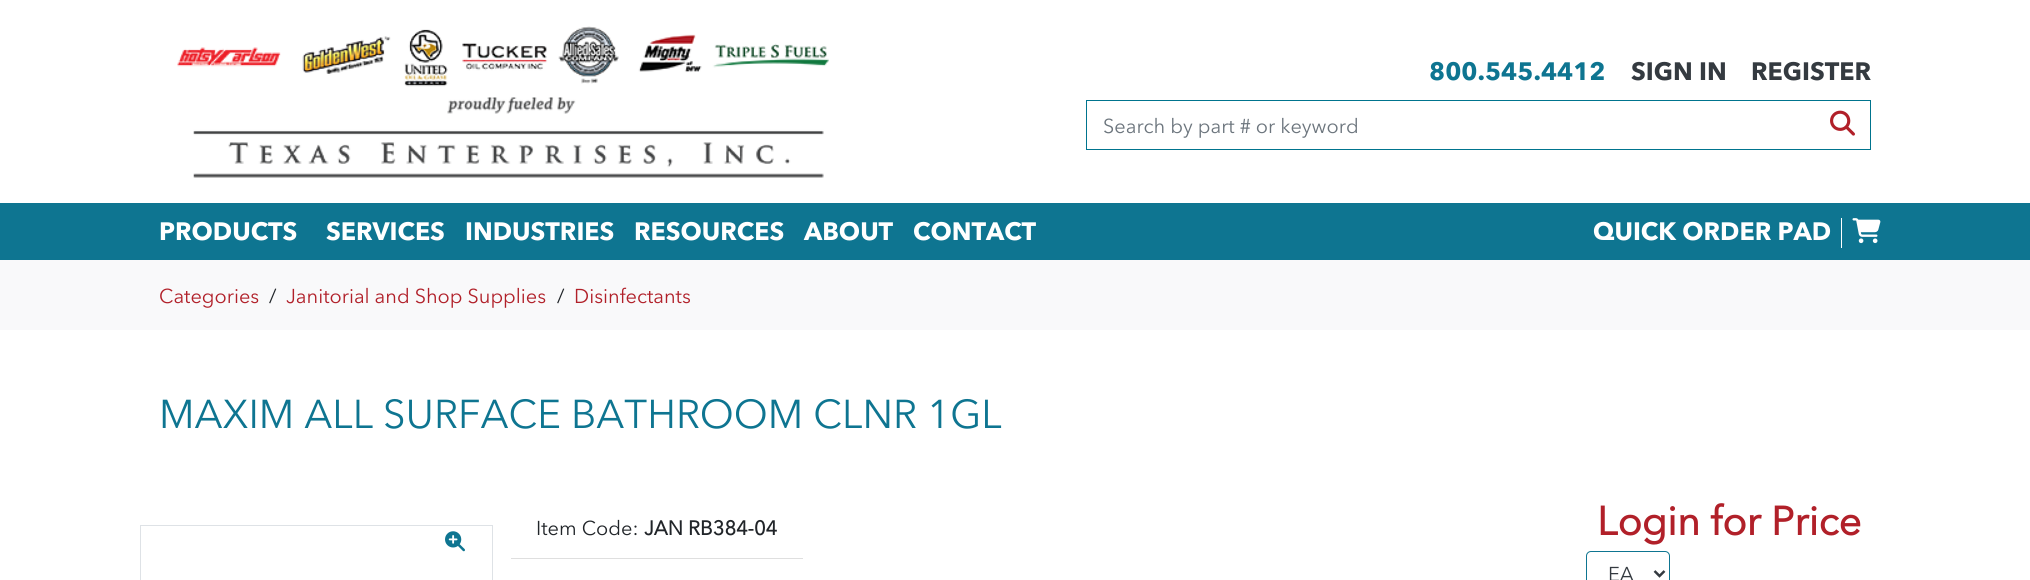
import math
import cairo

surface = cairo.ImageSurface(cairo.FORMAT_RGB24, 2030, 580)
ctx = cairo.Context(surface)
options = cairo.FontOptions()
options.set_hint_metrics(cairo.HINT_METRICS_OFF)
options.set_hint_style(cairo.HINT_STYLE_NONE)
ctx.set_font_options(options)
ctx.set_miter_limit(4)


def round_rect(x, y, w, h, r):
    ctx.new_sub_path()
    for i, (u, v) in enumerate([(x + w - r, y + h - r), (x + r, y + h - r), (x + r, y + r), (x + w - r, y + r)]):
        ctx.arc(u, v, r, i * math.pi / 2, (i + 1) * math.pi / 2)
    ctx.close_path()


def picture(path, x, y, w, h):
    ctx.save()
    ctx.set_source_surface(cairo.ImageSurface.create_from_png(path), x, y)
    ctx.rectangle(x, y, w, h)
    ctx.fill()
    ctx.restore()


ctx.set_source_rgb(1, 1, 1)
ctx.paint()
picture("img1.png", 177, 26, 652, 152)
ctx.select_font_face("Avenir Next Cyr", cairo.FONT_SLANT_NORMAL, cairo.FONT_WEIGHT_BOLD)
ctx.set_font_size(25)
ctx.set_source_rgb(0.055, 0.459, 0.569)
ctx.move_to(1429, 80)
ctx.show_text("800.545.4412")
ctx.set_source_rgb(0.204, 0.227, 0.251)
ctx.move_to(1631, 80)
ctx.show_text("SIGN IN")
ctx.move_to(1751, 80)
ctx.show_text("REGISTER")
ctx.rectangle(1086.5, 100.5, 784, 49)
ctx.set_source_rgb(0, 0.455, 0.557)
ctx.set_line_width(1)
ctx.stroke()
ctx.select_font_face("Avenir Next Cyr")
ctx.set_font_size(20)
ctx.set_source_rgb(0.424, 0.459, 0.49)
ctx.move_to(1103, 133)
ctx.show_text("Search by part # or keyword")
picture("img2.png", 1830, 110, 25, 26)
ctx.set_source_rgb(0.055, 0.459, 0.569)
ctx.rectangle(0, 203, 2030, 57)
ctx.fill()
ctx.select_font_face("Avenir Next Cyr", cairo.FONT_SLANT_NORMAL, cairo.FONT_WEIGHT_BOLD)
ctx.set_font_size(25)
ctx.set_source_rgb(1, 1, 1)
ctx.move_to(159, 240)
ctx.show_text("PRODUCTS")
ctx.move_to(326, 240)
ctx.show_text("SERVICES")
ctx.move_to(465, 240)
ctx.show_text("INDUSTRIES")
ctx.move_to(634, 240)
ctx.show_text("RESOURCES")
ctx.move_to(804, 240)
ctx.show_text("ABOUT")
ctx.move_to(913, 240)
ctx.show_text("CONTACT")
ctx.move_to(1593, 240)
ctx.show_text("QUICK ORDER PAD")
ctx.rectangle(1841, 218, 1, 30)
ctx.fill()
picture("img3.png", 1852, 218, 29, 26)
ctx.set_source_rgb(0.973, 0.976, 0.98)
ctx.rectangle(0, 260, 2030, 70)
ctx.fill()
ctx.select_font_face("Avenir Next Cyr")
ctx.set_font_size(20)
ctx.set_source_rgb(0.694, 0.125, 0.161)
ctx.move_to(159, 303)
ctx.show_text("Categories")
ctx.set_source_rgb(0.129, 0.145, 0.161)
ctx.move_to(269, 303)
ctx.show_text("/")
ctx.set_source_rgb(0.694, 0.125, 0.161)
ctx.move_to(286, 303)
ctx.show_text("Janitorial and Shop Supplies")
ctx.set_source_rgb(0.129, 0.145, 0.161)
ctx.move_to(557, 303)
ctx.show_text("/")
ctx.set_source_rgb(0.694, 0.125, 0.161)
ctx.move_to(574, 303)
ctx.show_text("Disinfectants")
ctx.set_font_size(40)
ctx.set_source_rgb(0.055, 0.459, 0.569)
ctx.move_to(159, 428)
ctx.show_text("MAXIM ALL SURFACE BATHROOM CLNR 1GL")
ctx.rectangle(140.5, 525.5, 352, 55)
ctx.set_source_rgb(0.871, 0.886, 0.902)
ctx.stroke()
picture("img4.png", 445, 531, 20, 21)
ctx.set_source_rgb(0.875, 0.875, 0.875)
ctx.rectangle(511, 558, 292, 1)
ctx.fill()
ctx.set_font_size(20)
ctx.set_source_rgb(0.129, 0.145, 0.161)
ctx.move_to(536, 535)
ctx.show_text("Item Code:")
ctx.select_font_face("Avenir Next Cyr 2", cairo.FONT_SLANT_NORMAL, cairo.FONT_WEIGHT_BOLD)
ctx.move_to(644, 535)
ctx.show_text("JAN RB384-04")
ctx.set_font_size(40)
ctx.set_source_rgb(0.694, 0.125, 0.161)
ctx.move_to(1597, 535)
ctx.show_text("Login for Price")
round_rect(1586.5, 551.5, 83, 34, 4.5)
ctx.set_source_rgb(0.055, 0.459, 0.569)
ctx.stroke()
ctx.new_path()
ctx.move_to(1654.5, 571)
ctx.line_to(1659.5, 576)
ctx.line_to(1664.5, 571)
ctx.set_source_rgb(0.204, 0.227, 0.251)
ctx.set_line_width(2.5)
ctx.stroke()
ctx.select_font_face("Avenir Next Cyr")
ctx.set_font_size(20)
ctx.move_to(1608, 581)
ctx.show_text("EA")
surface.write_to_png("page.png")
